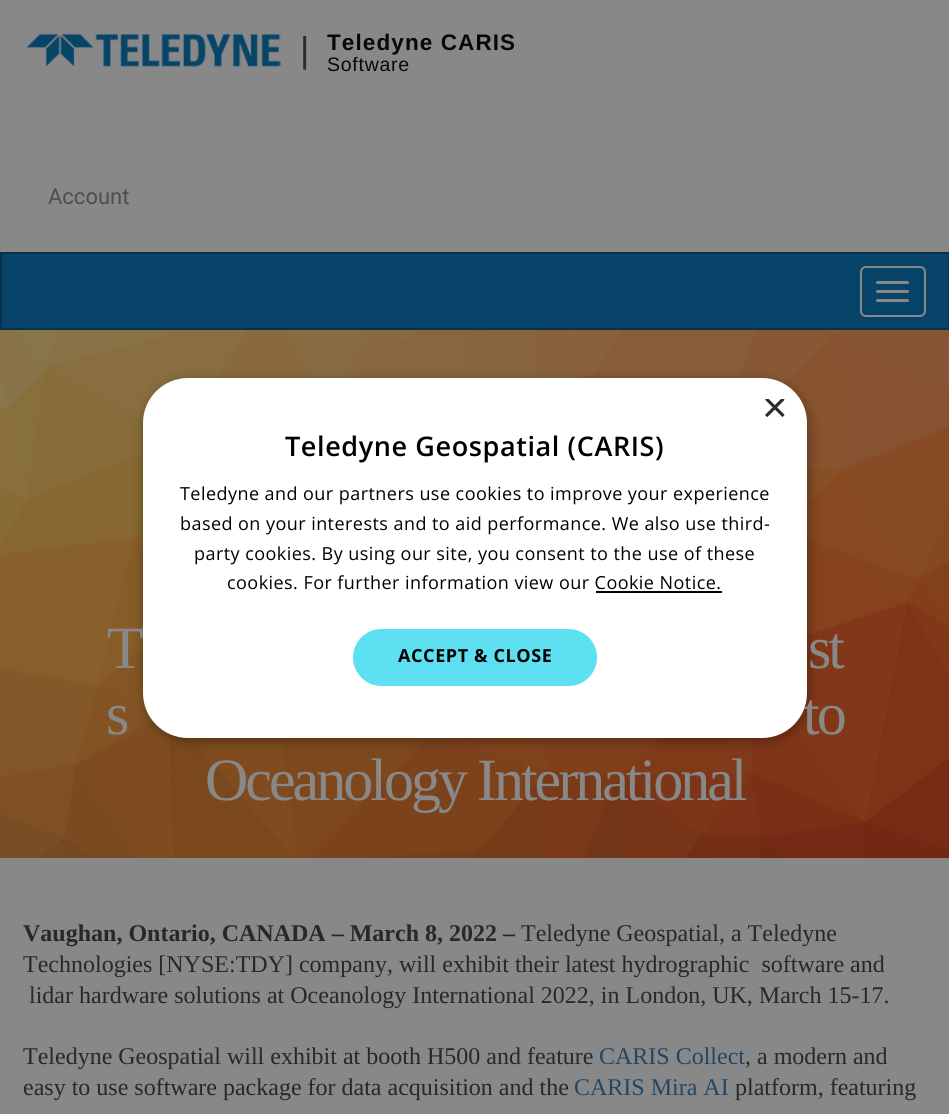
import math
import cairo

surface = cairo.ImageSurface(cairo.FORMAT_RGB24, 949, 1114)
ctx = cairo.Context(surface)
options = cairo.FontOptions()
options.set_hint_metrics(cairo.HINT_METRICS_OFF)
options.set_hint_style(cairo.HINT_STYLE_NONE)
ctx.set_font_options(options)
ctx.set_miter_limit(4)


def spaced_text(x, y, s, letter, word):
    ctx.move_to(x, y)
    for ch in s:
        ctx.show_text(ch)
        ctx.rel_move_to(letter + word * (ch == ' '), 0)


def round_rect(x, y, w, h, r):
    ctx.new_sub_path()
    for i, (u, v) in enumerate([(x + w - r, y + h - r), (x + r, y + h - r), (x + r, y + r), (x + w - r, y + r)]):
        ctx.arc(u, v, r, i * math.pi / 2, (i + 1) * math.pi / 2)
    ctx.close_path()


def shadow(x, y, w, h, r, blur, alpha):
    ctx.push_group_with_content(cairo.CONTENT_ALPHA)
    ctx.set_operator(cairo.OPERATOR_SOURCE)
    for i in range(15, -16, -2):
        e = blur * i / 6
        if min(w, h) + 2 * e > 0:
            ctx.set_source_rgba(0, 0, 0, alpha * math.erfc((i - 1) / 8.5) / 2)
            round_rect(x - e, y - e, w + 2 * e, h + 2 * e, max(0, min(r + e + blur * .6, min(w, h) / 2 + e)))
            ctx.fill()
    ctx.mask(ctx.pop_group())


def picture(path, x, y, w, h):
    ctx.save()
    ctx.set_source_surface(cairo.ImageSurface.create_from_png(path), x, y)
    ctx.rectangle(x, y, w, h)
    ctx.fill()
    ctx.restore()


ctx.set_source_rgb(0.533, 0.533, 0.533)
ctx.paint()
picture("img1.png", 26, 33, 256, 34)
ctx.select_font_face("Liberation Sans")
ctx.set_font_size(36)
ctx.set_source_rgb(0.169, 0.169, 0.169)
ctx.move_to(300, 62)
ctx.show_text("|")
ctx.select_font_face("Liberation Sans", cairo.FONT_SLANT_NORMAL, cairo.FONT_WEIGHT_BOLD)
ctx.set_font_size(22.5)
ctx.set_source_rgb(0.035, 0.035, 0.035)
spaced_text(327, 50, "Teledyne CARIS", 1.1, 0)
ctx.select_font_face("Liberation Sans")
ctx.set_font_size(19.5)
spaced_text(327, 71, "Software", 0.75, 0)
ctx.select_font_face("Roboto")
ctx.set_font_size(22)
ctx.set_source_rgb(0.302, 0.302, 0.302)
ctx.move_to(48, 204)
ctx.show_text("Account")
ctx.set_source_rgb(0.035, 0.263, 0.412)
ctx.rectangle(1, 253, 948, 76)
ctx.fill_preserve()
ctx.set_source_rgb(0.035, 0.192, 0.294)
ctx.stroke()
round_rect(861, 267, 64, 49, 5)
ctx.set_source_rgb(0.533, 0.533, 0.533)
ctx.stroke()
round_rect(876, 281, 33, 3, 1.5)
ctx.fill()
round_rect(876, 290, 33, 3, 1.5)
ctx.fill()
round_rect(876, 299, 33, 3, 1.5)
ctx.fill()
picture("img2.png", 0, 330, 949, 528)
ctx.set_source_rgb(0, 0, 0)
shadow(144, 381, 665, 360, 45, 6, 0.35)
ctx.select_font_face("Liberation Serif")
ctx.set_font_size(60)
ctx.set_source_rgb(0.533, 0.533, 0.533)
spaced_text(107, 668, "T", -3, 0)
spaced_text(803, 734, "to", -3, 0)
ctx.set_source_rgb(1, 1, 1)
round_rect(143, 378, 664, 360, 45)
ctx.fill()
ctx.save()
ctx.rectangle(762, 399, 23, 23)
ctx.clip()
ctx.select_font_face("Liberation Sans")
ctx.set_font_size(44)
ctx.set_source_rgb(0.169, 0.169, 0.169)
ctx.move_to(762, 422)
ctx.show_text("×")
ctx.restore()
ctx.select_font_face("Open Sans SemiBold")
ctx.set_font_size(27)
ctx.set_source_rgb(0, 0, 0)
spaced_text(285, 456, "Teledyne Geospatial (CARIS)", 0.6, 0)
ctx.select_font_face("Open Sans")
ctx.set_font_size(18)
spaced_text(180, 500, "Teledyne and our partners use cookies to improve your experience", 0.45, 0)
spaced_text(180, 530, "based on your interests and to aid performance. We also use third-", 0.45, 0)
spaced_text(194, 560, "party cookies. By using our site, you consent to the use of these", 0.45, 0)
spaced_text(227, 589, "cookies. For further information view our Cookie Notice.", 0.45, 0)
ctx.rectangle(596, 591, 126, 2)
ctx.fill()
ctx.set_source_rgb(0.361, 0.878, 0.949)
round_rect(353, 629, 244, 57, 28.5)
ctx.fill()
ctx.select_font_face("Open Sans", cairo.FONT_SLANT_NORMAL, cairo.FONT_WEIGHT_BOLD)
ctx.set_source_rgb(0, 0, 0)
spaced_text(398, 662, "ACCEPT & CLOSE", 0.6, 0)
ctx.select_font_face("Liberation Serif")
ctx.set_font_size(60)
ctx.set_source_rgb(0.533, 0.533, 0.533)
spaced_text(808, 668, "st", -3, 0)
spaced_text(106, 734, "s", -3, 0)
spaced_text(205, 800, "Oceanology International", -3, 0)
ctx.select_font_face("Liberation Serif", cairo.FONT_SLANT_NORMAL, cairo.FONT_WEIGHT_BOLD)
ctx.set_font_size(24)
ctx.set_source_rgb(0.161, 0.157, 0.145)
ctx.move_to(23, 941)
ctx.show_text("Vaughan, Ontario, CANADA – March 8, 2022 –")
ctx.select_font_face("Liberation Serif")
ctx.move_to(521, 941)
ctx.show_text("Teledyne Geospatial, a Teledyne")
ctx.move_to(23, 972)
ctx.show_text("Technologies [NYSE:TDY] company, will exhibit their latest hydrographic  software and")
ctx.move_to(29, 1003)
ctx.show_text("lidar hardware solutions at Oceanology International 2022, in London, UK, March 15-17.")
ctx.move_to(23, 1064)
ctx.show_text("Teledyne Geospatial will exhibit at booth H500 and feature")
ctx.set_source_rgb(0.133, 0.275, 0.392)
ctx.move_to(599, 1064)
ctx.show_text("CARIS Collect")
ctx.set_source_rgb(0.161, 0.157, 0.145)
ctx.move_to(745, 1064)
ctx.show_text(", a modern and")
ctx.move_to(23, 1095)
ctx.show_text("easy to use software package for data acquisition and the")
ctx.set_source_rgb(0.133, 0.275, 0.392)
ctx.move_to(574, 1095)
ctx.show_text("CARIS Mira AI")
ctx.set_source_rgb(0.161, 0.157, 0.145)
ctx.move_to(735, 1095)
ctx.show_text("platform, featuring")
surface.write_to_png("page.png")
